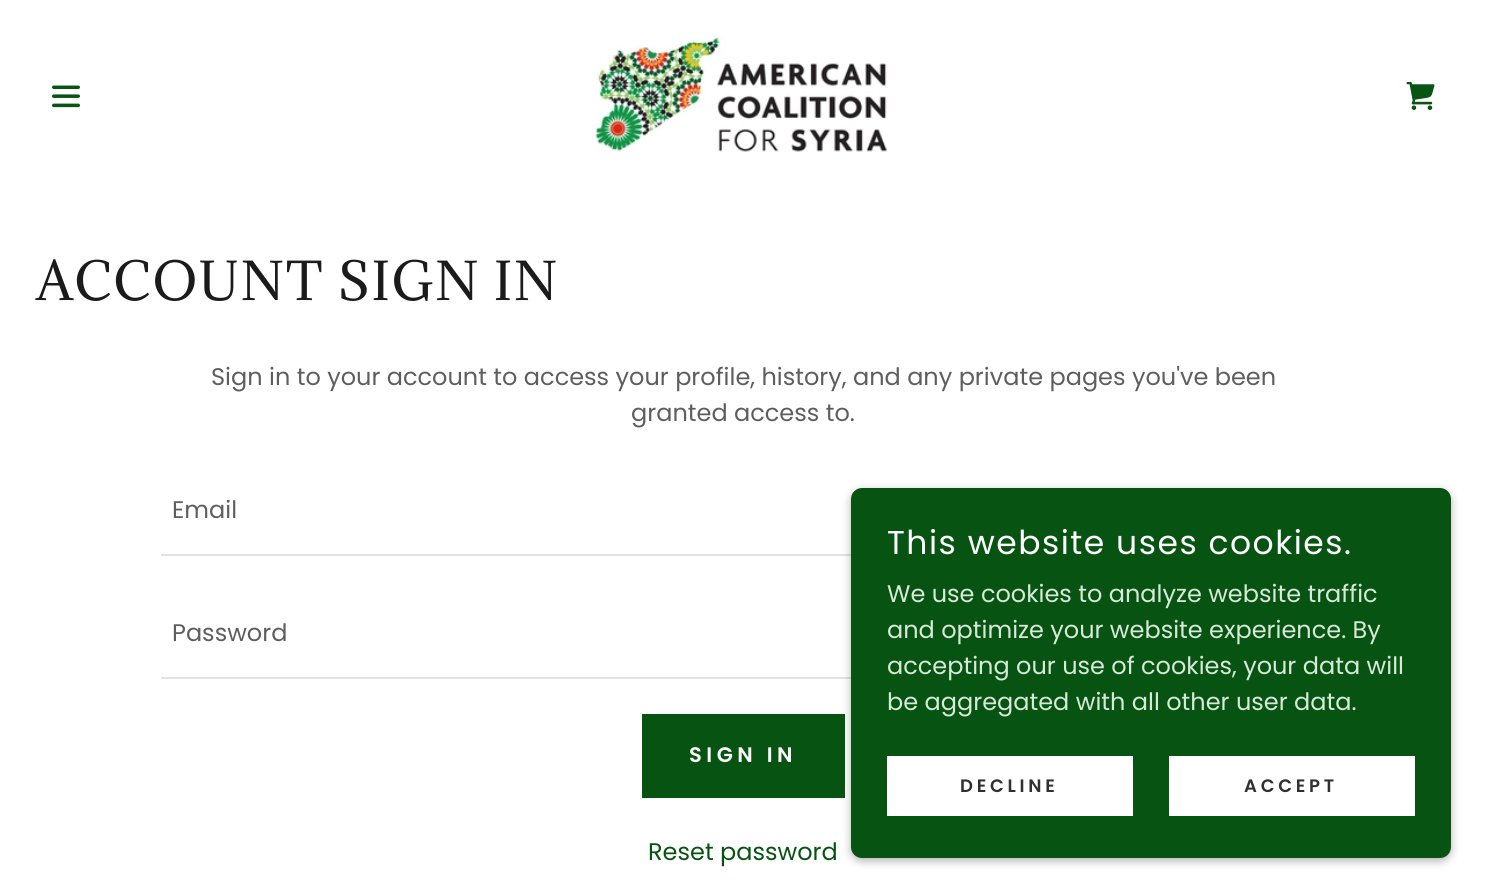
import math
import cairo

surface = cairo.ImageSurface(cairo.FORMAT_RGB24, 1486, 893)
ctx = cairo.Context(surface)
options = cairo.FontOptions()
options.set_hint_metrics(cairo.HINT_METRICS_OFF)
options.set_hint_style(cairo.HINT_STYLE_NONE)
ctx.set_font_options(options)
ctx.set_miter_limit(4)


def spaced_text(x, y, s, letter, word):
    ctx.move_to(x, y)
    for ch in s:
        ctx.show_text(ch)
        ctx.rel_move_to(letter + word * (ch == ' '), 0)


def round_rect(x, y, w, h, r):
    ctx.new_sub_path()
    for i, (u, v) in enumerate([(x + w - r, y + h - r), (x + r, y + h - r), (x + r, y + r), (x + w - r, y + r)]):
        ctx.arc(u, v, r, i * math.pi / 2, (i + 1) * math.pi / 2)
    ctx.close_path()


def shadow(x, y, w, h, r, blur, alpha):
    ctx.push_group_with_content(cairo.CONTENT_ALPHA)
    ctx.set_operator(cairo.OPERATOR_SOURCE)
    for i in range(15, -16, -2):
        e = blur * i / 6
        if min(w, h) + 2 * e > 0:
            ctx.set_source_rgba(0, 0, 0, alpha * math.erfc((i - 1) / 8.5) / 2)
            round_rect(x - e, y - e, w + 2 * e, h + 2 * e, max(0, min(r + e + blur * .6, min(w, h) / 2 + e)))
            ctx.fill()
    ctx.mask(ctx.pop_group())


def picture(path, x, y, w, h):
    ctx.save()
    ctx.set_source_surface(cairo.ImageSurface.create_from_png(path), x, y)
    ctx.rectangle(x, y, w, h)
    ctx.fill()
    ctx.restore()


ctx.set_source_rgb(1, 1, 1)
ctx.paint()
picture("img1.png", 52, 85, 28, 23)
picture("img2.png", 595, 36, 293, 116)
picture("img3.png", 1406, 82, 29, 28)
ctx.select_font_face("Adamina")
ctx.set_font_size(49.5)
ctx.set_source_rgb(0.106, 0.106, 0.106)
spaced_text(36, 300, "ACCOUNT SIGN IN", 1.5, 0)
ctx.select_font_face("Poppins")
ctx.set_font_size(24)
ctx.set_source_rgb(0.369, 0.369, 0.369)
ctx.move_to(211, 385)
ctx.show_text("Sign in to your account to access your profile, history, and any private pages you've been")
ctx.move_to(631, 421)
ctx.show_text("granted access to.")
ctx.set_source_rgb(0.886, 0.886, 0.886)
ctx.rectangle(161, 554, 690, 2)
ctx.fill()
ctx.set_source_rgb(0.369, 0.369, 0.369)
ctx.move_to(172, 518)
ctx.show_text("Email")
ctx.set_source_rgb(0.886, 0.886, 0.886)
ctx.rectangle(161, 677, 690, 2)
ctx.fill()
ctx.set_source_rgb(0.369, 0.369, 0.369)
ctx.move_to(172, 641)
ctx.show_text("Password")
ctx.set_source_rgb(0.031, 0.329, 0.071)
ctx.rectangle(642, 714, 203, 84)
ctx.fill()
ctx.select_font_face("Poppins SemiBold")
ctx.set_font_size(21)
ctx.set_source_rgb(1, 1, 1)
spaced_text(689, 762, "SIGN IN", 4.5, 0)
ctx.select_font_face("Poppins")
ctx.set_font_size(24)
ctx.set_source_rgb(0.031, 0.329, 0.071)
ctx.move_to(648, 860)
ctx.show_text("Reset password")
ctx.set_source_rgb(0, 0, 0)
shadow(851, 491, 600, 370, 11, 4.5, 0.3)
ctx.set_source_rgb(0.031, 0.329, 0.071)
round_rect(851, 488, 600, 370, 11)
ctx.fill()
ctx.set_font_size(33)
ctx.set_source_rgb(1, 1, 1)
spaced_text(887, 554, "This website uses cookies.", 1.5, 0)
ctx.set_font_size(24)
ctx.set_source_rgb(0.847, 0.91, 0.851)
ctx.move_to(887, 602)
ctx.show_text("We use cookies to analyze website traffic")
ctx.move_to(887, 638)
ctx.show_text("and optimize your website experience. By")
ctx.move_to(887, 674)
ctx.show_text("accepting our use of cookies, your data will")
ctx.move_to(887, 710)
ctx.show_text("be aggregated with all other user data.")
ctx.set_source_rgb(1, 1, 1)
ctx.rectangle(887, 756, 246, 60)
ctx.fill()
ctx.select_font_face("Poppins SemiBold")
ctx.set_font_size(18)
ctx.set_source_rgb(0.188, 0.188, 0.188)
spaced_text(960, 792, "DECLINE", 3.75, 0)
ctx.set_source_rgb(1, 1, 1)
ctx.rectangle(1169, 756, 246, 60)
ctx.fill()
ctx.set_source_rgb(0.188, 0.188, 0.188)
spaced_text(1244, 792, "ACCEPT", 3.75, 0)
surface.write_to_png("page.png")
